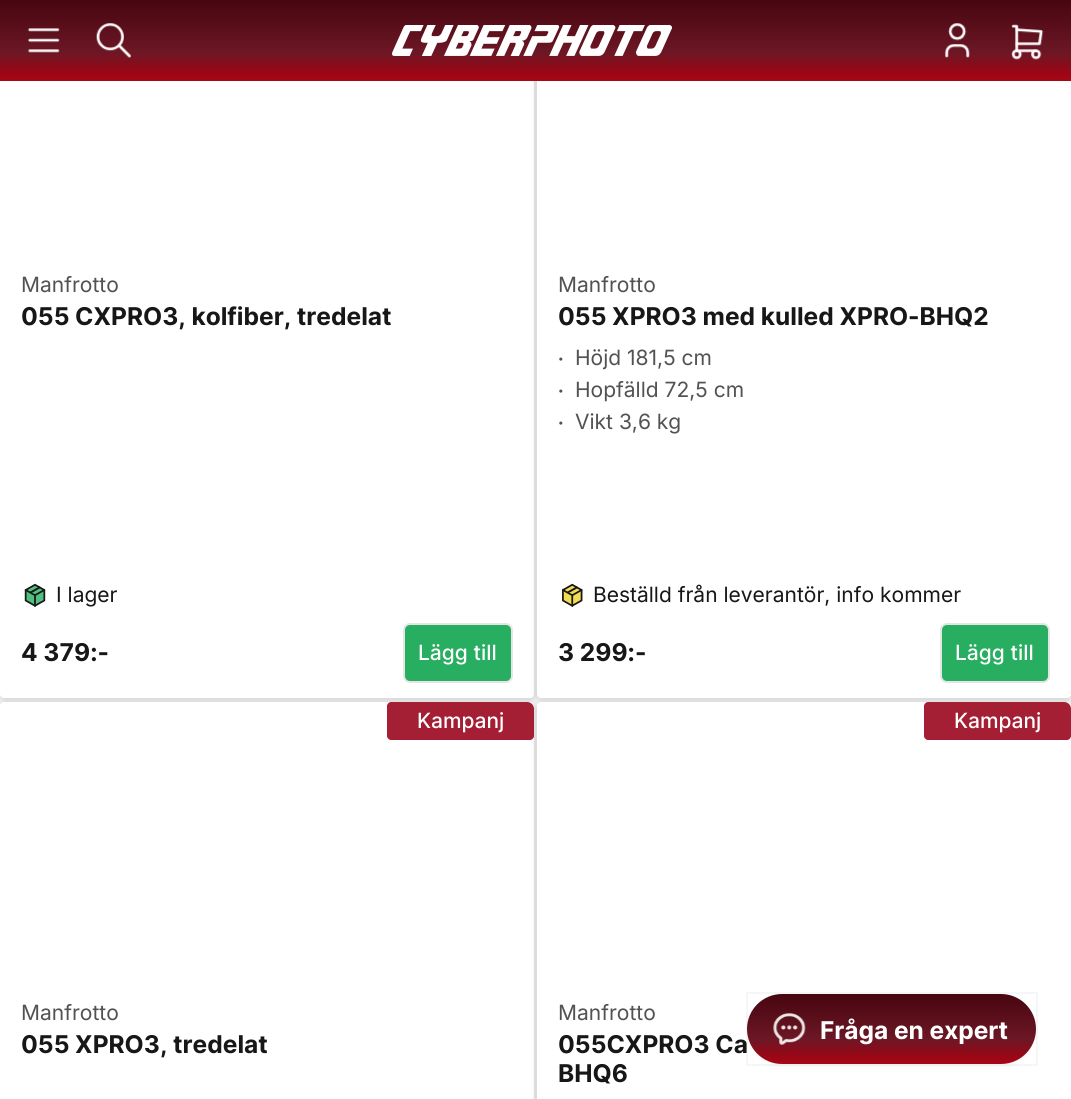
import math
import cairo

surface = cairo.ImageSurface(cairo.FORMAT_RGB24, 1071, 1099)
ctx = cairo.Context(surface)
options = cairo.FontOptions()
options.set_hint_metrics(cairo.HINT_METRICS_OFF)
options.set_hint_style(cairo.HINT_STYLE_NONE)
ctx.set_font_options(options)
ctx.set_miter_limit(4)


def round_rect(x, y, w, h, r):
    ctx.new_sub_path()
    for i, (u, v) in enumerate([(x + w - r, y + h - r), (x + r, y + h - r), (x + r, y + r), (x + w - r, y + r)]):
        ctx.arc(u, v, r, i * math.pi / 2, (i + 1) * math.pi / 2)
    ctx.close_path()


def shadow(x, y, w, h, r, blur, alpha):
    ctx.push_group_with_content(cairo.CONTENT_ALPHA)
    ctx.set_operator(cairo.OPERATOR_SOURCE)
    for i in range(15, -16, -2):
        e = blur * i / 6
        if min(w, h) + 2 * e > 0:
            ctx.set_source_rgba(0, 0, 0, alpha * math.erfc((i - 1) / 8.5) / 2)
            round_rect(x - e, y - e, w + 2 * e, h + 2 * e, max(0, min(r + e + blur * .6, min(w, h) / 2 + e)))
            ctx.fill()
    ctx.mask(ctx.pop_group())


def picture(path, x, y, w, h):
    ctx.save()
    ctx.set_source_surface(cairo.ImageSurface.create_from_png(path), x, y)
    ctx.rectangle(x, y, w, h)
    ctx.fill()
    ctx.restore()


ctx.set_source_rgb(0.961, 0.961, 0.961)
ctx.paint()
ctx.set_source_rgb(0, 0, 0)
shadow(0, -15, 534, 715, 4, 3.5, 0.16)
ctx.set_source_rgb(1, 1, 1)
round_rect(0, -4, 534, 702, 4)
ctx.fill()
ctx.set_source_rgb(0, 0, 0)
shadow(537, -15, 534, 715, 4, 3.5, 0.16)
ctx.set_source_rgb(1, 1, 1)
round_rect(537, -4, 534, 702, 4)
ctx.fill()
gradient = cairo.LinearGradient(536, 0, 536, 81)
gradient.add_color_stop_rgba(0, 0.275, 0.024, 0.063, 1)
gradient.add_color_stop_rgba(0.65, 0.427, 0.09, 0.145, 1)
gradient.add_color_stop_rgba(0.9, 0.608, 0.024, 0.082, 1)
gradient.add_color_stop_rgba(1, 0.659, 0.027, 0.09, 1)
ctx.set_source(gradient)
ctx.rectangle(0, 0, 1071, 81)
ctx.fill()
picture("img1.png", 27, 28, 33, 25)
picture("img2.png", 96, 23, 35, 35)
picture("img3.png", 392, 25, 280, 31)
picture("img4.png", 945, 23, 25, 35)
picture("img5.png", 1011, 24, 33, 36)
ctx.select_font_face("Inter")
ctx.set_font_size(21)
ctx.set_source_rgb(0.322, 0.322, 0.322)
ctx.move_to(21, 292)
ctx.show_text("Manfrotto")
ctx.select_font_face("Inter", cairo.FONT_SLANT_NORMAL, cairo.FONT_WEIGHT_BOLD)
ctx.set_font_size(24.5)
ctx.set_source_rgb(0.09, 0.09, 0.09)
ctx.move_to(21, 325)
ctx.show_text("055 CXPRO3, kolfiber, tredelat")
picture("img6.png", 24, 583, 22, 24)
ctx.select_font_face("Inter")
ctx.set_font_size(21)
ctx.move_to(56, 602)
ctx.show_text("I lager")
ctx.select_font_face("Inter", cairo.FONT_SLANT_NORMAL, cairo.FONT_WEIGHT_BOLD)
ctx.set_font_size(24.5)
ctx.move_to(21, 661)
ctx.show_text("4 379:-")
ctx.set_source_rgb(0.153, 0.682, 0.376)
round_rect(404, 624, 108, 58, 6)
ctx.fill_preserve()
ctx.set_source_rgb(0.898, 0.898, 0.898)
ctx.stroke()
ctx.select_font_face("Inter Medium")
ctx.set_font_size(21)
ctx.set_source_rgb(1, 1, 1)
ctx.move_to(418, 660)
ctx.show_text("Lägg till")
ctx.select_font_face("Inter")
ctx.set_source_rgb(0.322, 0.322, 0.322)
ctx.move_to(558, 292)
ctx.show_text("Manfrotto")
ctx.select_font_face("Inter", cairo.FONT_SLANT_NORMAL, cairo.FONT_WEIGHT_BOLD)
ctx.set_font_size(24.5)
ctx.set_source_rgb(0.09, 0.09, 0.09)
ctx.move_to(558, 325)
ctx.show_text("055 XPRO3 med kulled XPRO-BHQ2")
ctx.select_font_face("Inter")
ctx.set_font_size(10)
ctx.set_source_rgb(0.322, 0.322, 0.322)
ctx.move_to(558, 362)
ctx.show_text("•")
ctx.set_font_size(21)
ctx.move_to(575, 365)
ctx.show_text("Höjd 181,5 cm")
ctx.set_font_size(10)
ctx.move_to(558, 394)
ctx.show_text("•")
ctx.set_font_size(21)
ctx.move_to(575, 397)
ctx.show_text("Hopfälld 72,5 cm")
ctx.set_font_size(10)
ctx.move_to(558, 426)
ctx.show_text("•")
ctx.set_font_size(21)
ctx.move_to(575, 429)
ctx.show_text("Vikt 3,6 kg")
picture("img7.png", 562, 583, 21, 24)
ctx.set_source_rgb(0.09, 0.09, 0.09)
ctx.move_to(593, 602)
ctx.show_text("Beställd från leverantör, info kommer")
ctx.select_font_face("Inter", cairo.FONT_SLANT_NORMAL, cairo.FONT_WEIGHT_BOLD)
ctx.set_font_size(24.5)
ctx.move_to(558, 661)
ctx.show_text("3 299:-")
ctx.set_source_rgb(0.153, 0.682, 0.376)
round_rect(941, 624, 108, 58, 6)
ctx.fill_preserve()
ctx.set_source_rgb(0.898, 0.898, 0.898)
ctx.stroke()
ctx.select_font_face("Inter Medium")
ctx.set_font_size(21)
ctx.set_source_rgb(1, 1, 1)
ctx.move_to(955, 660)
ctx.show_text("Lägg till")
ctx.set_source_rgb(0, 0, 0)
shadow(0, 704, 534, 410, 4, 3.5, 0.16)
ctx.set_source_rgb(1, 1, 1)
round_rect(0, 702, 534, 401, 4)
ctx.fill()
ctx.set_source_rgb(0, 0, 0)
shadow(537, 704, 534, 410, 4, 3.5, 0.16)
ctx.set_source_rgb(0.643, 0.118, 0.204)
ctx.new_path()
ctx.move_to(391, 702)
ctx.line_to(527, 702)
ctx.curve_to(531, 702, 534, 705, 534, 709)
ctx.line_to(534, 736)
ctx.curve_to(534, 738, 532, 740, 530, 740)
ctx.line_to(391, 740)
ctx.curve_to(389, 740, 387, 738, 387, 736)
ctx.line_to(387, 706)
ctx.curve_to(387, 704, 389, 702, 391, 702)
ctx.close_path()
ctx.fill()
ctx.set_source_rgb(1, 1, 1)
ctx.move_to(417, 728)
ctx.show_text("Kampanj")
ctx.select_font_face("Inter")
ctx.set_source_rgb(0.322, 0.322, 0.322)
ctx.move_to(21, 1020)
ctx.show_text("Manfrotto")
ctx.select_font_face("Inter", cairo.FONT_SLANT_NORMAL, cairo.FONT_WEIGHT_BOLD)
ctx.set_font_size(24.5)
ctx.set_source_rgb(0.09, 0.09, 0.09)
ctx.move_to(21, 1053)
ctx.show_text("055 XPRO3, tredelat")
ctx.set_source_rgb(1, 1, 1)
round_rect(537, 702, 534, 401, 4)
ctx.fill()
ctx.set_source_rgb(0.643, 0.118, 0.204)
ctx.new_path()
ctx.move_to(928, 702)
ctx.line_to(1064, 702)
ctx.curve_to(1068, 702, 1071, 705, 1071, 709)
ctx.line_to(1071, 736)
ctx.curve_to(1071, 738, 1069, 740, 1067, 740)
ctx.line_to(928, 740)
ctx.curve_to(926, 740, 924, 738, 924, 736)
ctx.line_to(924, 706)
ctx.curve_to(924, 704, 926, 702, 928, 702)
ctx.close_path()
ctx.fill()
ctx.select_font_face("Inter Medium")
ctx.set_font_size(21)
ctx.set_source_rgb(1, 1, 1)
ctx.move_to(954, 728)
ctx.show_text("Kampanj")
ctx.select_font_face("Inter")
ctx.set_source_rgb(0.322, 0.322, 0.322)
ctx.move_to(558, 1020)
ctx.show_text("Manfrotto")
ctx.select_font_face("Inter", cairo.FONT_SLANT_NORMAL, cairo.FONT_WEIGHT_BOLD)
ctx.set_font_size(24.5)
ctx.set_source_rgb(0.09, 0.09, 0.09)
ctx.move_to(558, 1053)
ctx.show_text("055CXPRO3 Ca")
ctx.move_to(558, 1082)
ctx.show_text("BHQ6")
ctx.set_source_rgb(0.086, 0.102, 0.118)
shadow(758, 1012, 268, 49, 24.5, 7, 0.08)
ctx.rectangle(747, 993, 290, 72)
ctx.set_source_rgba(0.086, 0.102, 0.118, 0.04)
ctx.stroke()
gradient = cairo.LinearGradient(892, 994, 892, 1064)
gradient.add_color_stop_rgba(0, 0.275, 0.024, 0.063, 1)
gradient.add_color_stop_rgba(0.65, 0.427, 0.09, 0.145, 1)
gradient.add_color_stop_rgba(0.9, 0.608, 0.024, 0.082, 1)
gradient.add_color_stop_rgba(1, 0.659, 0.027, 0.09, 1)
ctx.set_source(gradient)
round_rect(747, 994, 289, 70, 35)
ctx.fill()
picture("img8.png", 773, 1013, 33, 32)
ctx.set_source_rgb(1, 1, 1)
ctx.move_to(820, 1039)
ctx.show_text("Fråga en expert")
surface.write_to_png("page.png")
